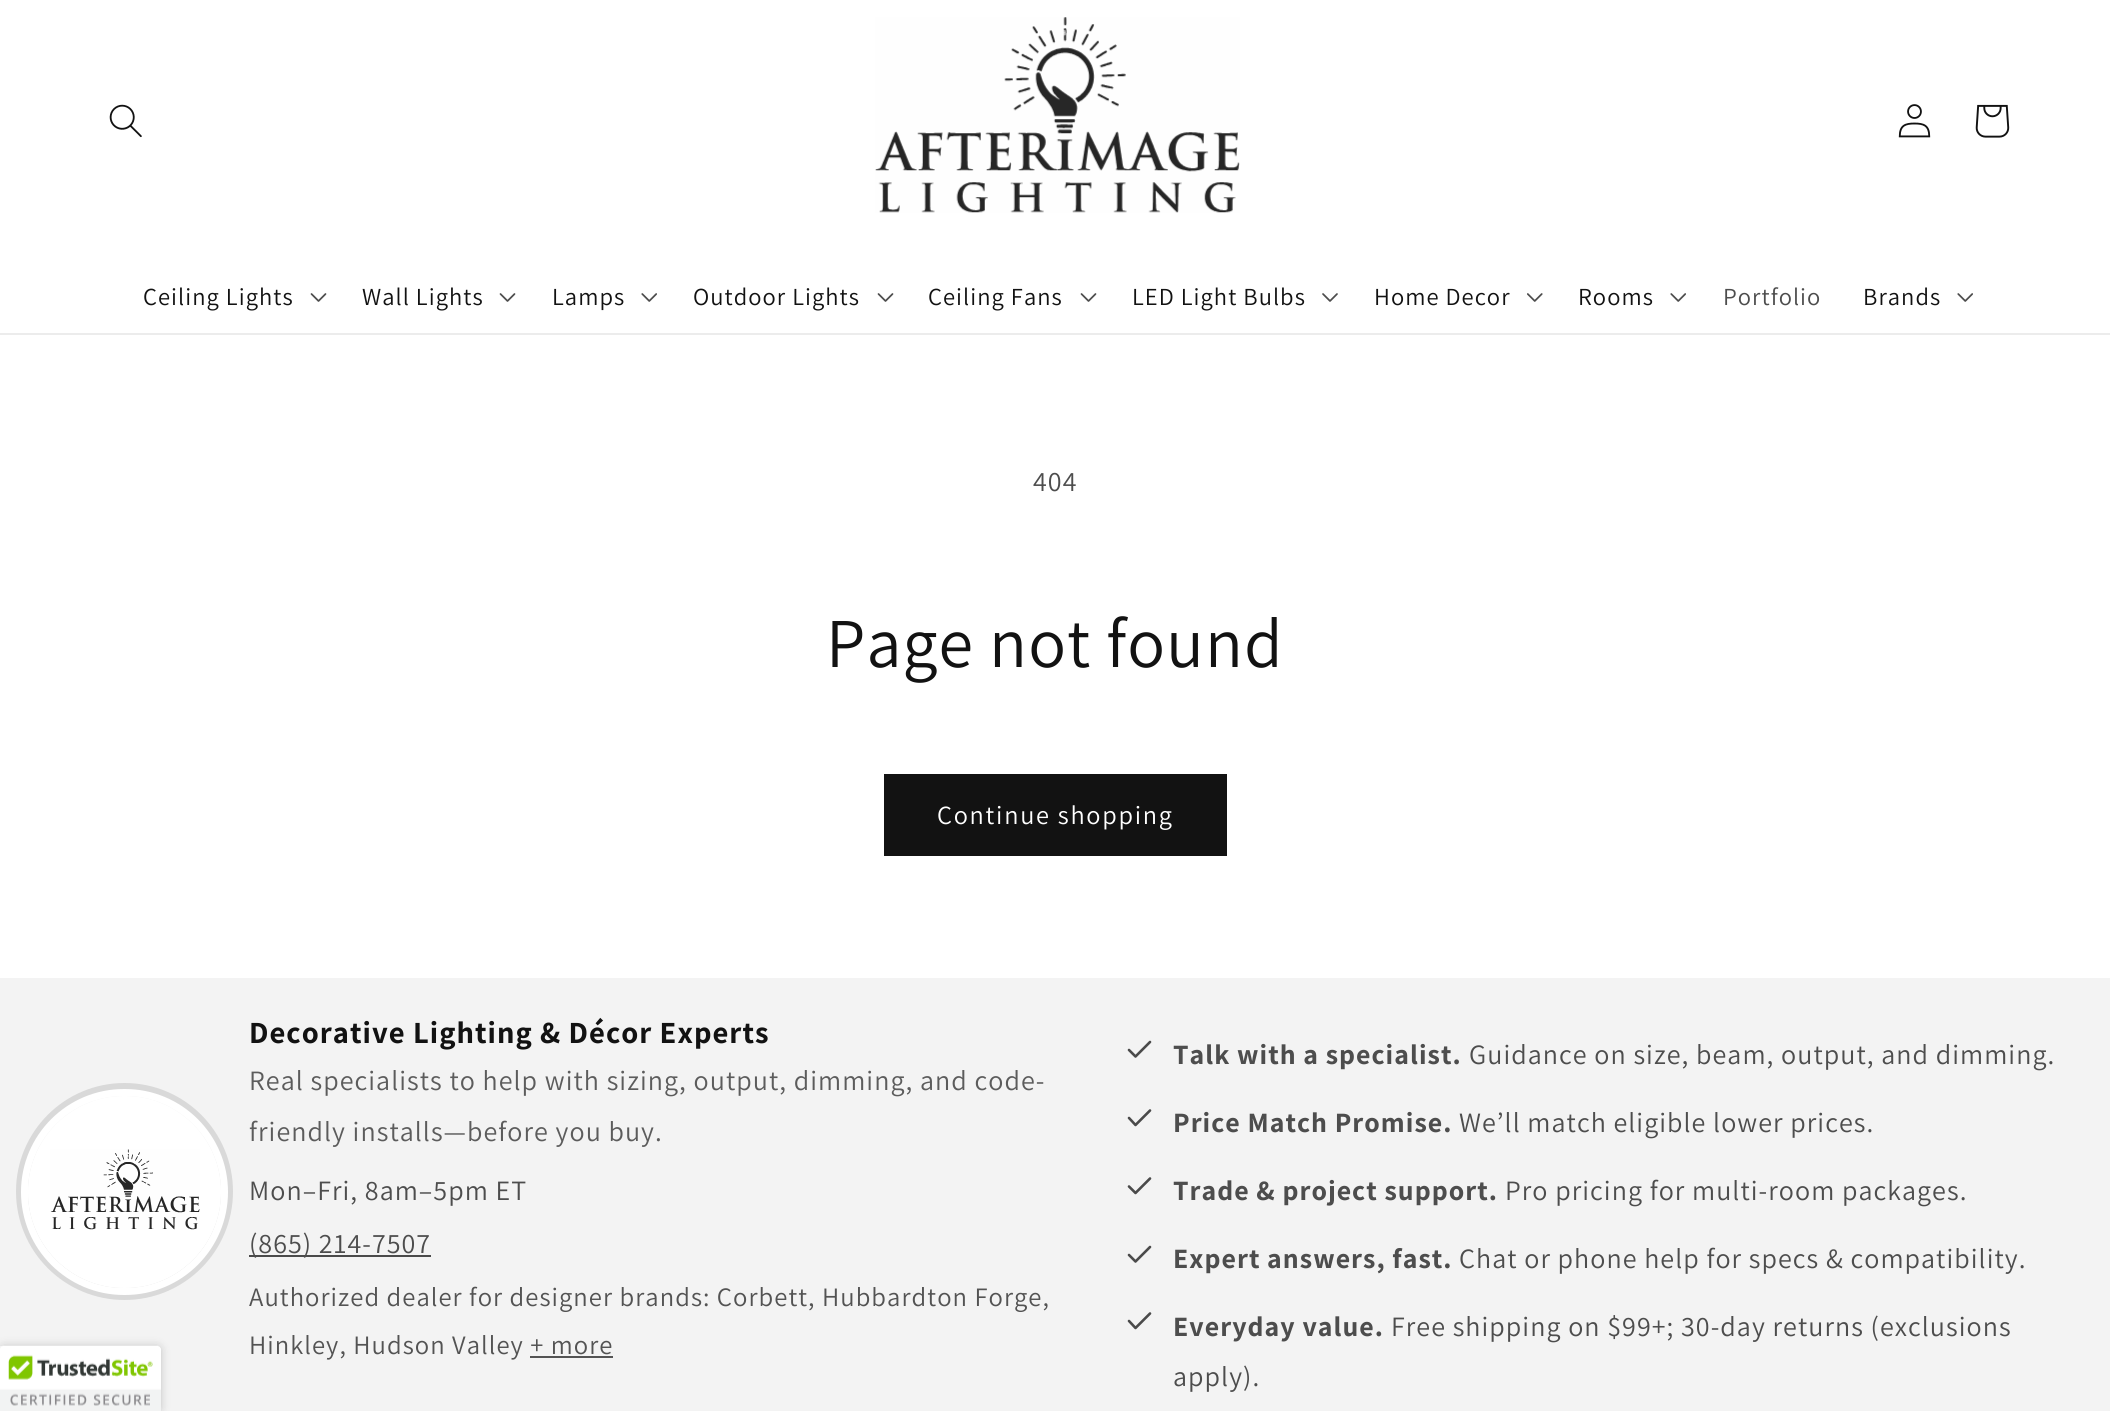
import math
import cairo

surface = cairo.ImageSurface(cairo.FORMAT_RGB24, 2110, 1411)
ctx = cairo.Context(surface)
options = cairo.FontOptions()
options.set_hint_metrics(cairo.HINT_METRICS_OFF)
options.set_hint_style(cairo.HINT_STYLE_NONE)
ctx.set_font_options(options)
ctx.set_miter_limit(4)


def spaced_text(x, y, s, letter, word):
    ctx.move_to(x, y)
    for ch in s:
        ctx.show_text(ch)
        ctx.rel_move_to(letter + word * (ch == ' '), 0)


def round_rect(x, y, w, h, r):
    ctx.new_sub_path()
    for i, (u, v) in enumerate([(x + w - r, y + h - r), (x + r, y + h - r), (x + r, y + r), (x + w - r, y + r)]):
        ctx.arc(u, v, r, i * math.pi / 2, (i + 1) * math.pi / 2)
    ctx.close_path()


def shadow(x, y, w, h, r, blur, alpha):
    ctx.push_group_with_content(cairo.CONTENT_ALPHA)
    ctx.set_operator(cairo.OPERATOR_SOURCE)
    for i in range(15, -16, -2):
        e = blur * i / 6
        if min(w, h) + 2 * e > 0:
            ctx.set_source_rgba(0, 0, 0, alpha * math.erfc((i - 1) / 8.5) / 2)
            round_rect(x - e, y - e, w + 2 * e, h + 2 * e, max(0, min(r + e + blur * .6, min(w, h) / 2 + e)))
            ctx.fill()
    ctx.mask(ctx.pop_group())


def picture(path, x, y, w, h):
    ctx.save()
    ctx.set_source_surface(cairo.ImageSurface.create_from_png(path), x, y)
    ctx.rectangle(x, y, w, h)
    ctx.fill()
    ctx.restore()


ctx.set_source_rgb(1, 1, 1)
ctx.paint()
ctx.set_source_rgb(0.925, 0.925, 0.925)
ctx.rectangle(0, 333, 2110, 2)
ctx.fill()
picture("img1.png", 109, 104, 33, 34)
picture("img2.png", 875, 17, 365, 196)
picture("img3.png", 1898, 104, 33, 34)
picture("img4.png", 1975, 104, 35, 34)
ctx.select_font_face("Assistant")
ctx.set_font_size(24.5)
ctx.set_source_rgb(0.071, 0.071, 0.071)
spaced_text(143, 305, "Ceiling Lights", 1.05, 0)
picture("img5.png", 310, 293, 17, 9)
spaced_text(362, 305, "Wall Lights", 1.05, 0)
picture("img5.png", 499, 293, 17, 9)
spaced_text(552, 305, "Lamps", 1.05, 0)
picture("img6.png", 641, 293, 16, 9)
spaced_text(693, 305, "Outdoor Lights", 1.05, 0)
picture("img5.png", 877, 293, 17, 9)
spaced_text(928, 305, "Ceiling Fans", 1.05, 0)
picture("img5.png", 1080, 293, 17, 9)
spaced_text(1132, 305, "LED Light Bulbs", 1.05, 0)
picture("img7.png", 1322, 293, 16, 9)
spaced_text(1374, 305, "Home Decor", 1.05, 0)
picture("img8.png", 1527, 293, 16, 9)
spaced_text(1578, 305, "Rooms", 1.05, 0)
picture("img6.png", 1670, 293, 16, 9)
ctx.set_source_rgb(0.302, 0.302, 0.302)
spaced_text(1723, 305, "Portfolio", 1.05, 0)
ctx.set_source_rgb(0.071, 0.071, 0.071)
spaced_text(1863, 305, "Brands", 1.05, 0)
picture("img6.png", 1957, 293, 16, 9)
ctx.set_font_size(28)
ctx.set_source_rgb(0.302, 0.302, 0.302)
spaced_text(1033, 491, "404", 1.05, 0)
ctx.set_font_size(70)
ctx.set_source_rgb(0.071, 0.071, 0.071)
spaced_text(826, 667, "Page not found", 1.05, 0)
ctx.rectangle(884, 774, 343, 82)
ctx.fill()
ctx.set_font_size(26.25)
ctx.set_source_rgb(1, 1, 1)
spaced_text(937, 824, "Continue shopping", 1.75, 0)
ctx.set_source_rgb(0.953, 0.953, 0.953)
ctx.rectangle(0, 978, 2110, 433)
ctx.fill()
ctx.set_source_rgb(0, 0, 0)
shadow(0, 1346, 161, 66, 4, 4.5, 0.2)
ctx.set_source_rgb(1, 1, 1)
ctx.new_path()
ctx.move_to(0, 1346)
ctx.line_to(157, 1346)
ctx.curve_to(159, 1346, 161, 1348, 161, 1350)
ctx.line_to(161, 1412)
ctx.line_to(0, 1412)
ctx.close_path()
ctx.fill()
picture("img9.png", 0, 1345, 161, 66)
ctx.arc(124.5, 1191.5, 102.5, 0, 2 * math.pi)
ctx.set_source_rgb(0.851, 0.851, 0.851)
ctx.set_line_width(12)
ctx.stroke()
round_rect(24.5, 1092.5, 200, 199, 99.5)
ctx.set_source_rgb(1, 1, 1)
ctx.set_line_width(7)
ctx.stroke()
round_rect(28, 1096, 193, 192, 96)
ctx.fill()
picture("img10.png", 50, 1149, 150, 81)
ctx.select_font_face("Assistant", cairo.FONT_SLANT_NORMAL, cairo.FONT_WEIGHT_BOLD)
ctx.set_font_size(30.75)
ctx.set_source_rgb(0.071, 0.071, 0.071)
spaced_text(249, 1043, "Decorative Lighting & Décor Experts", 1.05, 0)
ctx.select_font_face("Assistant")
ctx.set_font_size(28)
ctx.set_source_rgb(0.361, 0.361, 0.361)
spaced_text(249, 1090, "Real specialists to help with sizing, output, dimming, and code-", 1.05, 0)
spaced_text(249, 1141, "friendly installs—before you buy.", 1.05, 0)
ctx.set_source_rgb(0.302, 0.302, 0.302)
spaced_text(249, 1200, "Mon–Fri, 8am–5pm ET", 1.05, 0)
ctx.set_source_rgb(0.29, 0.29, 0.29)
ctx.rectangle(249, 1255, 182, 2)
ctx.fill()
ctx.set_source_rgb(0.302, 0.302, 0.302)
spaced_text(249, 1253, "(865) 214-7507", 1.05, 0)
ctx.set_font_size(26.6)
ctx.set_source_rgb(0.325, 0.325, 0.325)
spaced_text(249, 1306, "Authorized dealer for designer brands: Corbett, Hubbardton Forge,", 1.05, 0)
spaced_text(249, 1354, "Hinkley, Hudson Valley + more", 1.05, 0)
ctx.rectangle(530, 1356, 83, 2)
ctx.fill()
ctx.new_path()
ctx.move_to(1150, 1042)
ctx.line_to(1135.5, 1056.5)
ctx.line_to(1129, 1050)
ctx.set_source_rgb(0.29, 0.29, 0.29)
ctx.set_line_width(2.6)
ctx.set_line_cap(cairo.LINE_CAP_ROUND)
ctx.set_line_join(cairo.LINE_JOIN_ROUND)
ctx.stroke()
ctx.select_font_face("Assistant", cairo.FONT_SLANT_NORMAL, cairo.FONT_WEIGHT_BOLD)
ctx.set_font_size(28)
ctx.set_source_rgb(0.302, 0.302, 0.302)
spaced_text(1173, 1064, "Talk with a specialist.", 1.05, 0)
ctx.select_font_face("Assistant")
spaced_text(1469, 1064, "Guidance on size, beam, output, and dimming.", 1.05, 0)
ctx.new_path()
ctx.move_to(1150, 1110.5)
ctx.line_to(1135.5, 1125)
ctx.line_to(1129, 1118)
ctx.set_source_rgb(0.29, 0.29, 0.29)
ctx.stroke()
ctx.select_font_face("Assistant", cairo.FONT_SLANT_NORMAL, cairo.FONT_WEIGHT_BOLD)
ctx.set_source_rgb(0.302, 0.302, 0.302)
spaced_text(1173, 1132, "Price Match Promise.", 1.05, 0)
ctx.select_font_face("Assistant")
spaced_text(1459, 1132, "We’ll match eligible lower prices.", 1.05, 0)
ctx.new_path()
ctx.move_to(1150, 1178.5)
ctx.line_to(1135.5, 1193)
ctx.line_to(1129, 1186.5)
ctx.set_source_rgb(0.29, 0.29, 0.29)
ctx.stroke()
ctx.select_font_face("Assistant", cairo.FONT_SLANT_NORMAL, cairo.FONT_WEIGHT_BOLD)
ctx.set_source_rgb(0.302, 0.302, 0.302)
spaced_text(1173, 1200, "Trade & project support.", 1.05, 0)
ctx.select_font_face("Assistant")
spaced_text(1505, 1200, "Pro pricing for multi-room packages.", 1.05, 0)
ctx.new_path()
ctx.move_to(1150, 1247)
ctx.line_to(1135.5, 1261.5)
ctx.line_to(1129, 1255)
ctx.set_source_rgb(0.29, 0.29, 0.29)
ctx.stroke()
ctx.select_font_face("Assistant", cairo.FONT_SLANT_NORMAL, cairo.FONT_WEIGHT_BOLD)
ctx.set_source_rgb(0.302, 0.302, 0.302)
spaced_text(1173, 1268, "Expert answers, fast.", 1.05, 0)
ctx.select_font_face("Assistant")
spaced_text(1459, 1268, "Chat or phone help for specs & compatibility.", 1.05, 0)
ctx.new_path()
ctx.move_to(1150, 1313.5)
ctx.line_to(1135.5, 1328)
ctx.line_to(1129, 1321)
ctx.set_source_rgb(0.29, 0.29, 0.29)
ctx.stroke()
ctx.select_font_face("Assistant", cairo.FONT_SLANT_NORMAL, cairo.FONT_WEIGHT_BOLD)
ctx.set_source_rgb(0.302, 0.302, 0.302)
spaced_text(1173, 1336, "Everyday value.", 1.05, 0)
ctx.select_font_face("Assistant")
spaced_text(1391, 1336, "Free shipping on $99+; 30-day returns (exclusions", 1.05, 0)
spaced_text(1173, 1386, "apply).", 1.05, 0)
surface.write_to_png("page.png")
